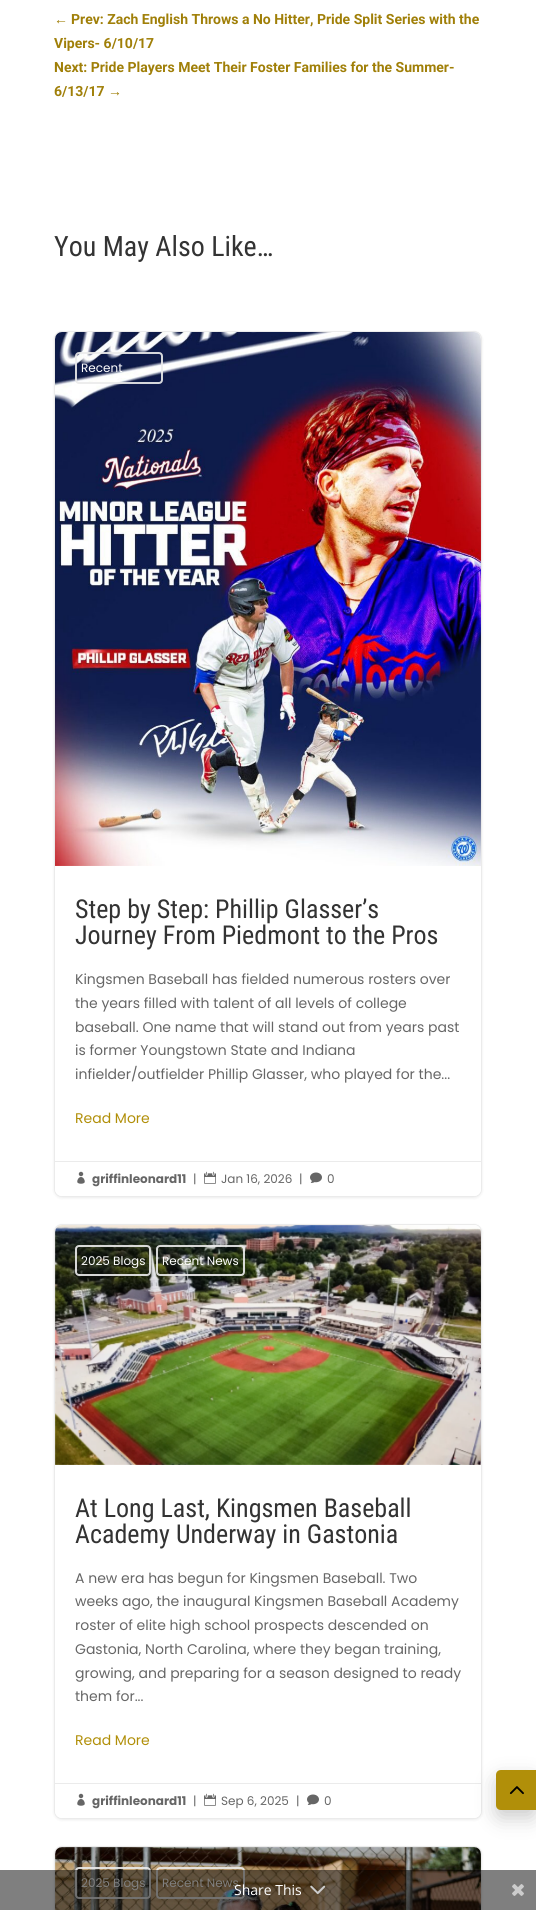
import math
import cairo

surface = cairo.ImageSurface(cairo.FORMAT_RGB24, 536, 1910)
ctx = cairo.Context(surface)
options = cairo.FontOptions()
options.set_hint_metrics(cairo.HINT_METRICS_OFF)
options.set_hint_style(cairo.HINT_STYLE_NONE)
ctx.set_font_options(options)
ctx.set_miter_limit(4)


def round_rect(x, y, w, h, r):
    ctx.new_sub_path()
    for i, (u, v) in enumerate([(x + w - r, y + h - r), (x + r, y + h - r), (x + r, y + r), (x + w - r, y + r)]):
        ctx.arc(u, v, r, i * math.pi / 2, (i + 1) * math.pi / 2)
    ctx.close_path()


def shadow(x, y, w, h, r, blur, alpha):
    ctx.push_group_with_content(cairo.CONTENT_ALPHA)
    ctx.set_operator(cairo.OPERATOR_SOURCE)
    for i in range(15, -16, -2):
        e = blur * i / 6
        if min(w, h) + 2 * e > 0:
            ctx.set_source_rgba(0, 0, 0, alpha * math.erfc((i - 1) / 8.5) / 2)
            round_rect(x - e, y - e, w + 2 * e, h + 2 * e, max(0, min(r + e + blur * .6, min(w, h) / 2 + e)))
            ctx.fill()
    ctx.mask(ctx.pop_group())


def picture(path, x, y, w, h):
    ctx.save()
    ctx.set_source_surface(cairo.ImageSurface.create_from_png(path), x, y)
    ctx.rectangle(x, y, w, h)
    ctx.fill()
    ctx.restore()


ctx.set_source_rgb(1, 1, 1)
ctx.paint()
ctx.select_font_face("Liberation Sans", cairo.FONT_SLANT_NORMAL, cairo.FONT_WEIGHT_BOLD)
ctx.set_font_size(14)
ctx.set_source_rgb(0.627, 0.498, 0.035)
ctx.move_to(54, 24)
ctx.show_text("←")
ctx.select_font_face("Roboto", cairo.FONT_SLANT_NORMAL, cairo.FONT_WEIGHT_BOLD)
ctx.move_to(71, 24)
ctx.show_text("Prev: Zach English Throws a No Hitter, Pride Split Series with the")
ctx.move_to(54, 48)
ctx.show_text("Vipers- 6/10/17")
ctx.move_to(54, 72)
ctx.show_text("Next: Pride Players Meet Their Foster Families for the Summer-")
ctx.move_to(54, 96)
ctx.show_text("6/13/17")
ctx.select_font_face("Liberation Sans", cairo.FONT_SLANT_NORMAL, cairo.FONT_WEIGHT_BOLD)
ctx.move_to(108, 96)
ctx.show_text("→")
ctx.select_font_face("Roboto Condensed")
ctx.set_font_size(28)
ctx.set_source_rgb(0.2, 0.2, 0.2)
ctx.move_to(54, 256)
ctx.show_text("You May Also Like…")
ctx.set_source_rgb(0, 0, 0)
shadow(54, 332, 428, 866, 8, 1.5, 0.08)
ctx.set_source_rgb(1, 1, 1)
round_rect(54.5, 331.5, 427, 865, 7.5)
ctx.fill_preserve()
ctx.set_source_rgb(0.918, 0.918, 0.918)
ctx.set_line_width(1)
ctx.stroke()
picture("img1.png", 55, 332, 426, 534)
round_rect(76, 353, 86, 30, 3)
ctx.set_source_rgba(0.922, 0.922, 0.922, 0.9)
ctx.set_line_width(2)
ctx.stroke()
ctx.select_font_face("Poppins")
ctx.set_font_size(12)
ctx.set_source_rgb(1, 1, 1)
ctx.move_to(81, 372)
ctx.show_text("Recent")
ctx.select_font_face("Roboto Condensed")
ctx.set_font_size(26)
ctx.set_source_rgb(0.2, 0.2, 0.2)
ctx.move_to(75, 918)
ctx.show_text("Step by Step: Phillip Glasser’s")
ctx.move_to(75, 944)
ctx.show_text("Journey From Piedmont to the Pros")
ctx.select_font_face("Poppins")
ctx.set_font_size(14)
ctx.set_source_rgb(0.4, 0.4, 0.4)
ctx.move_to(75, 984)
ctx.show_text("Kingsmen Baseball has fielded numerous rosters over")
ctx.move_to(75, 1008)
ctx.show_text("the years filled with talent of all levels of college")
ctx.move_to(75, 1032)
ctx.show_text("baseball. One name that will stand out from years past")
ctx.move_to(75, 1055)
ctx.show_text("is former Youngstown State and Indiana")
ctx.move_to(75, 1079)
ctx.show_text("infielder/outfielder Phillip Glasser, who played for the...")
ctx.set_source_rgb(0.694, 0.561, 0.039)
ctx.move_to(75, 1123)
ctx.show_text("Read More")
ctx.set_source_rgb(1, 1, 1)
ctx.new_path()
ctx.move_to(55, 1161)
ctx.line_to(481, 1161)
ctx.line_to(481, 1189)
ctx.curve_to(481, 1193, 478, 1196, 474, 1196)
ctx.line_to(62, 1196)
ctx.curve_to(58, 1196, 55, 1193, 55, 1189)
ctx.close_path()
ctx.fill()
ctx.set_source_rgb(0.918, 0.918, 0.918)
ctx.rectangle(55, 1161, 426, 1)
ctx.fill()
picture("img2.png", 77, 1171, 8, 13)
ctx.select_font_face("Poppins", cairo.FONT_SLANT_NORMAL, cairo.FONT_WEIGHT_BOLD)
ctx.set_font_size(12)
ctx.set_source_rgb(0.4, 0.4, 0.4)
ctx.move_to(92, 1183)
ctx.show_text("griffinleonard11")
ctx.select_font_face("Poppins")
ctx.move_to(193, 1183)
ctx.show_text("|")
picture("img3.png", 204, 1171, 12, 13)
ctx.move_to(221, 1183)
ctx.show_text("Jan 16, 2026")
ctx.move_to(299, 1183)
ctx.show_text("|")
picture("img4.png", 310, 1172, 12, 11)
ctx.move_to(327, 1183)
ctx.show_text("0")
ctx.set_source_rgb(0, 0, 0)
shadow(54, 1225, 428, 595, 8, 1.5, 0.08)
ctx.set_source_rgb(1, 1, 1)
round_rect(54.5, 1224.5, 427, 594, 7.5)
ctx.fill_preserve()
ctx.set_source_rgb(0.918, 0.918, 0.918)
ctx.set_line_width(1)
ctx.stroke()
picture("img5.png", 55, 1225, 426, 240)
round_rect(76, 1246, 74, 29, 3)
ctx.set_source_rgba(0.922, 0.922, 0.922, 0.9)
ctx.set_line_width(2)
ctx.stroke()
ctx.set_source_rgb(1, 1, 1)
ctx.move_to(81, 1265)
ctx.show_text("2025 Blogs")
round_rect(157, 1246, 87, 29, 3)
ctx.set_source_rgba(0.922, 0.922, 0.922, 0.9)
ctx.stroke()
ctx.set_source_rgb(1, 1, 1)
ctx.move_to(162, 1265)
ctx.show_text("Recent News")
ctx.select_font_face("Roboto Condensed")
ctx.set_font_size(26)
ctx.set_source_rgb(0.2, 0.2, 0.2)
ctx.move_to(75, 1517)
ctx.show_text("At Long Last, Kingsmen Baseball")
ctx.move_to(75, 1543)
ctx.show_text("Academy Underway in Gastonia")
ctx.select_font_face("Poppins")
ctx.set_font_size(14)
ctx.set_source_rgb(0.4, 0.4, 0.4)
ctx.move_to(75, 1583)
ctx.show_text("A new era has begun for Kingsmen Baseball. Two")
ctx.move_to(75, 1606)
ctx.show_text("weeks ago, the inaugural Kingsmen Baseball Academy")
ctx.move_to(75, 1630)
ctx.show_text("roster of elite high school prospects descended on")
ctx.move_to(75, 1654)
ctx.show_text("Gastonia, North Carolina, where they began training,")
ctx.move_to(75, 1678)
ctx.show_text("growing, and preparing for a season designed to ready")
ctx.move_to(75, 1701)
ctx.show_text("them for...")
ctx.set_source_rgb(0.694, 0.561, 0.039)
ctx.move_to(75, 1745)
ctx.show_text("Read More")
ctx.set_source_rgb(1, 1, 1)
ctx.new_path()
ctx.move_to(55, 1783)
ctx.line_to(481, 1783)
ctx.line_to(481, 1811)
ctx.curve_to(481, 1815, 478, 1818, 474, 1818)
ctx.line_to(62, 1818)
ctx.curve_to(58, 1818, 55, 1815, 55, 1811)
ctx.close_path()
ctx.fill()
ctx.set_source_rgb(0.918, 0.918, 0.918)
ctx.rectangle(55, 1783, 426, 1)
ctx.fill()
picture("img2.png", 77, 1793, 8, 13)
ctx.select_font_face("Poppins", cairo.FONT_SLANT_NORMAL, cairo.FONT_WEIGHT_BOLD)
ctx.set_font_size(12)
ctx.set_source_rgb(0.4, 0.4, 0.4)
ctx.move_to(92, 1805)
ctx.show_text("griffinleonard11")
ctx.select_font_face("Poppins")
ctx.move_to(193, 1805)
ctx.show_text("|")
picture("img3.png", 204, 1793, 12, 13)
ctx.move_to(221, 1805)
ctx.show_text("Sep 6, 2025")
ctx.move_to(296, 1805)
ctx.show_text("|")
picture("img4.png", 307, 1794, 12, 11)
ctx.move_to(324, 1805)
ctx.show_text("0")
ctx.set_source_rgb(0, 0, 0)
shadow(54, 1847, 428, 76, 8, 1.5, 0.08)
ctx.set_source_rgb(1, 1, 1)
round_rect(54.5, 1846.5, 427, 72, 7.5)
ctx.fill_preserve()
ctx.set_source_rgb(0.918, 0.918, 0.918)
ctx.set_line_width(1)
ctx.stroke()
picture("img6.png", 55, 1847, 426, 63)
round_rect(76, 1868, 74, 30, 3)
ctx.set_source_rgba(0.922, 0.922, 0.922, 0.9)
ctx.set_line_width(2)
ctx.stroke()
ctx.set_source_rgb(1, 1, 1)
ctx.move_to(81, 1887)
ctx.show_text("2025 Blogs")
round_rect(157, 1868, 87, 30, 3)
ctx.set_source_rgba(0.922, 0.922, 0.922, 0.9)
ctx.stroke()
ctx.set_source_rgb(1, 1, 1)
ctx.move_to(162, 1887)
ctx.show_text("Recent News")
ctx.set_source_rgb(0, 0, 0)
shadow(496, 1778, 40, 40, 5, 10, 0.2)
ctx.set_source_rgb(0.694, 0.561, 0.039)
ctx.new_path()
ctx.move_to(501, 1770)
ctx.line_to(536, 1770)
ctx.line_to(536, 1810)
ctx.line_to(501, 1810)
ctx.curve_to(498, 1810, 496, 1808, 496, 1805)
ctx.line_to(496, 1775)
ctx.curve_to(496, 1772, 498, 1770, 501, 1770)
ctx.close_path()
ctx.fill()
picture("img7.png", 509, 1786, 15, 9)
ctx.set_source_rgba(0, 0, 0, 0.5)
ctx.rectangle(0, 1870, 536, 40)
ctx.fill()
ctx.select_font_face("Open Sans")
ctx.set_font_size(14)
ctx.set_source_rgb(1, 1, 1)
ctx.move_to(234, 1895)
ctx.show_text("Share This")
picture("img8.png", 310, 1885, 16, 10)
picture("img9.png", 512, 1884, 12, 12)
surface.write_to_png("page.png")
